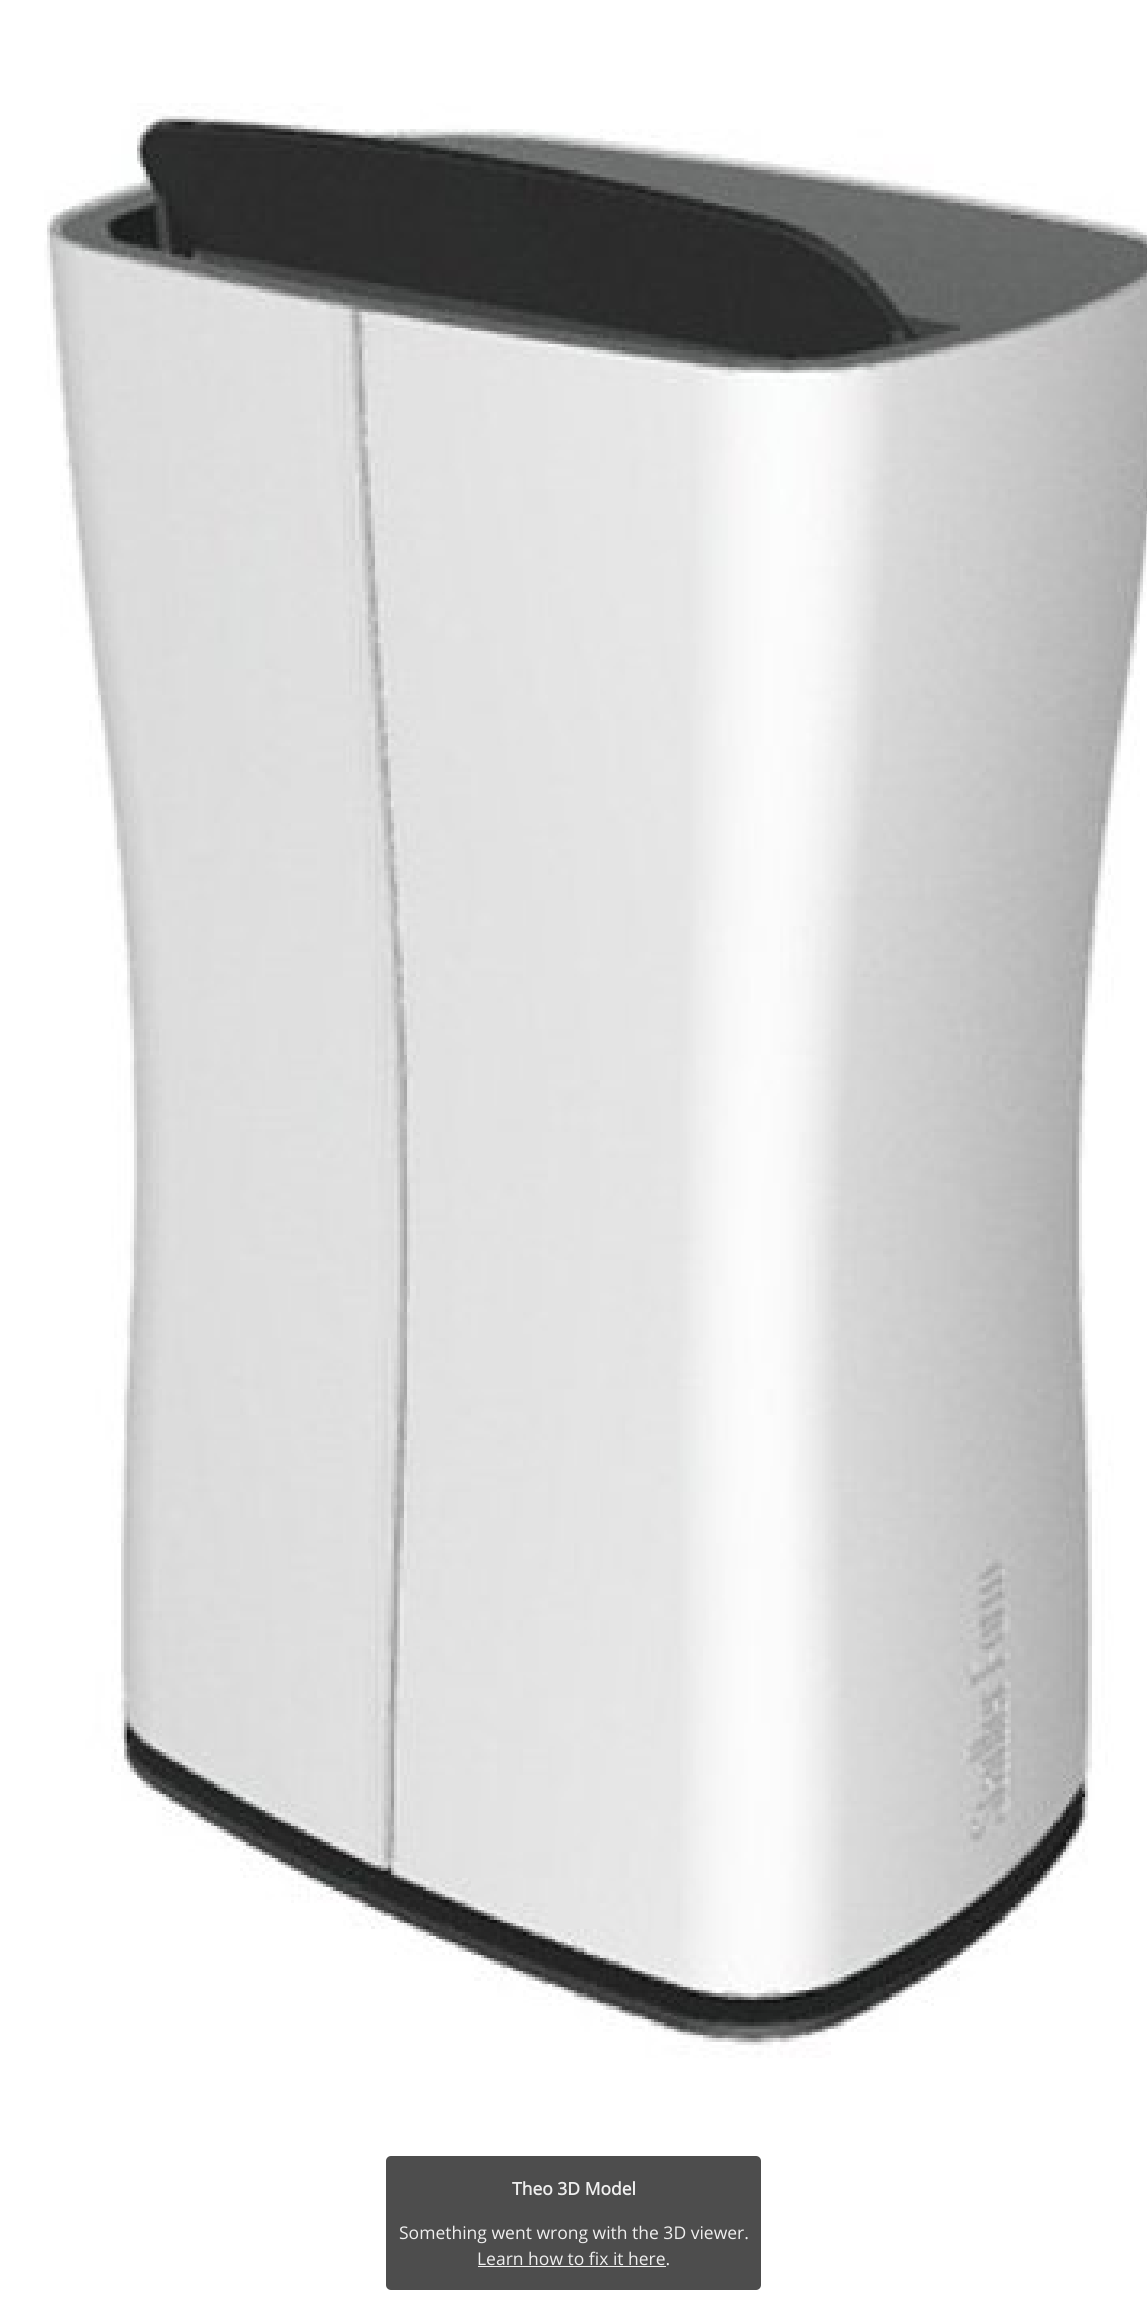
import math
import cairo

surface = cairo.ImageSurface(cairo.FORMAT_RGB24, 1147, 2314)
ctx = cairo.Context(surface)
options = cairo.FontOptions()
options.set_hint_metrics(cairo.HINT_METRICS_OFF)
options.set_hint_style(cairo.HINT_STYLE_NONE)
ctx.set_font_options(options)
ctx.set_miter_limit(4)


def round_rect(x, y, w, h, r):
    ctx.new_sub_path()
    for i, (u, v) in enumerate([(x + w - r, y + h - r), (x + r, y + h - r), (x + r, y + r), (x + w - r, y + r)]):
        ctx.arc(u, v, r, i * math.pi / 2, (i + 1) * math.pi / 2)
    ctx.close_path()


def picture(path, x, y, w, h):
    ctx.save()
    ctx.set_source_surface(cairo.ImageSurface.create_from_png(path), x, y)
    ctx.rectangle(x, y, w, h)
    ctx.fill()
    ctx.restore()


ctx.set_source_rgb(1, 1, 1)
ctx.paint()
picture("img1.png", 44, 103, 1103, 1955)
ctx.set_source_rgb(0.302, 0.302, 0.302)
round_rect(386, 2156, 375, 134, 5)
ctx.fill()
ctx.select_font_face("Open Sans", cairo.FONT_SLANT_NORMAL, cairo.FONT_WEIGHT_BOLD)
ctx.set_font_size(17.5)
ctx.set_source_rgb(0.937, 0.937, 0.937)
ctx.move_to(512, 2195)
ctx.show_text("Theo 3D Model")
ctx.select_font_face("Open Sans")
ctx.move_to(399, 2239)
ctx.show_text("Something went wrong with the 3D viewer.")
ctx.move_to(477, 2265)
ctx.show_text("Learn how to fix it here.")
ctx.rectangle(478, 2266, 188, 1)
ctx.fill()
surface.write_to_png("page.png")
